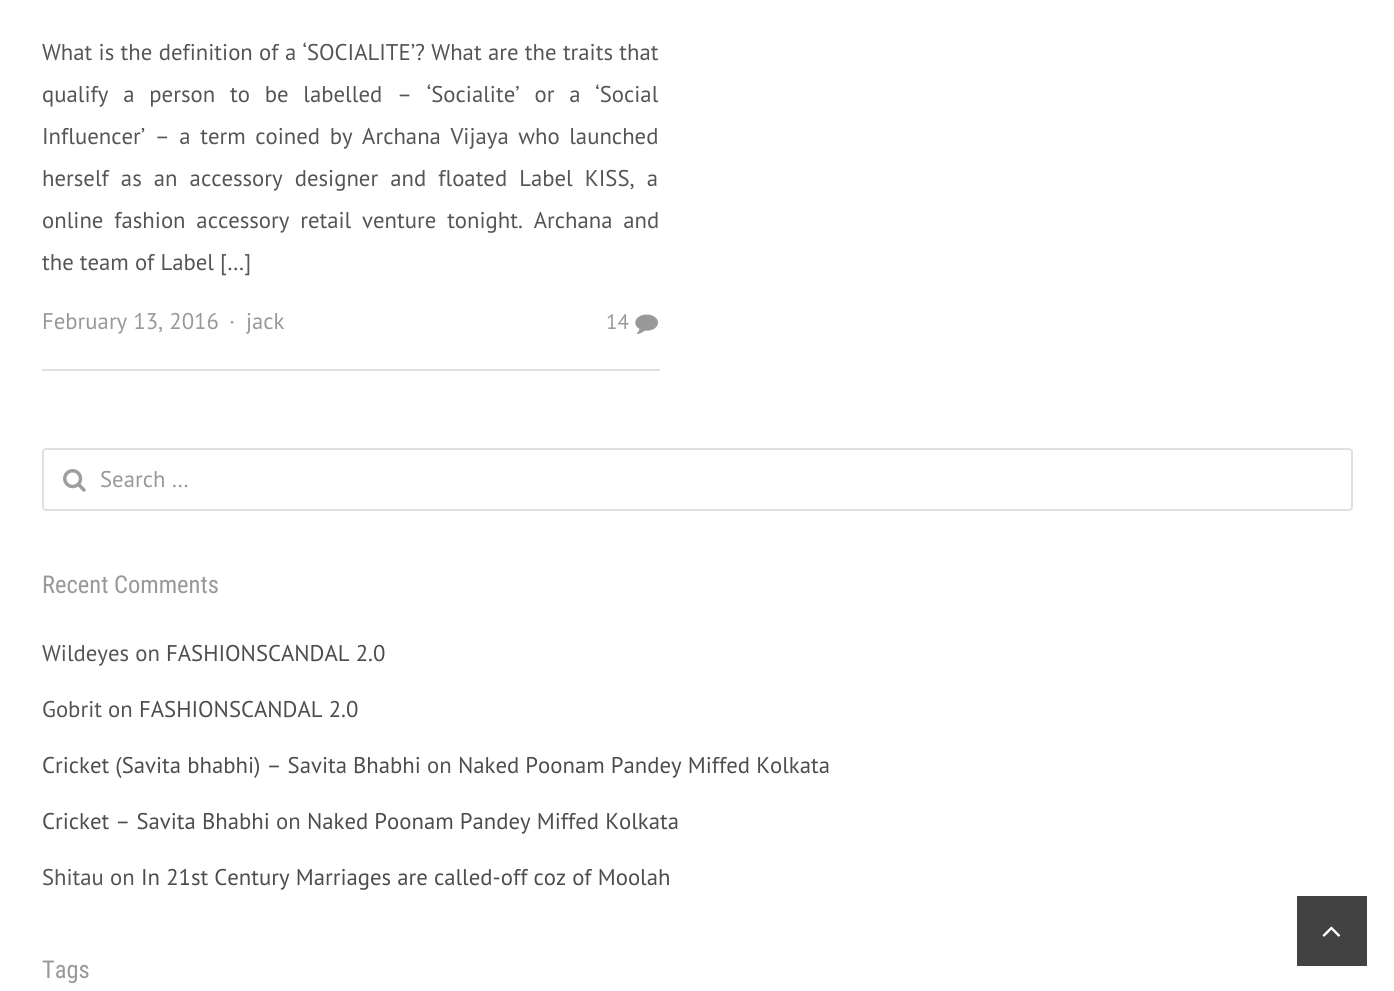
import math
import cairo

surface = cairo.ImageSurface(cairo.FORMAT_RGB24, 1394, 991)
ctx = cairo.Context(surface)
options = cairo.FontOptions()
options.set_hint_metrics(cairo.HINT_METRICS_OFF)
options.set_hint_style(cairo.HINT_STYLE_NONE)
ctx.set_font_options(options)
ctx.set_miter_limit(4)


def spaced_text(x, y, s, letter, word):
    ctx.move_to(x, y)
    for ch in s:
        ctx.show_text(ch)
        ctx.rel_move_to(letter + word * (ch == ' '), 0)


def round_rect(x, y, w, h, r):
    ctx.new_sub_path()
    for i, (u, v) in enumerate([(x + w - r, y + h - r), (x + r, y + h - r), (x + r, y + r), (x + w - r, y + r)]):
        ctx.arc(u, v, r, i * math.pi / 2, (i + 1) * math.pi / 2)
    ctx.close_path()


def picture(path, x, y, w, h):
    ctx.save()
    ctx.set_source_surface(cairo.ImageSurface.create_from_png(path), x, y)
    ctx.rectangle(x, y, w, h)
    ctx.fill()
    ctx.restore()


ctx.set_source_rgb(1, 1, 1)
ctx.paint()
ctx.select_font_face("PT Sans")
ctx.set_font_size(22.75)
ctx.set_source_rgb(0.333, 0.333, 0.333)
spaced_text(42, 60, "What is the definition of a ‘SOCIALITE’? What are the traits that", 0, 0.25)
spaced_text(42, 102, "qualify a person to be labelled – ‘Socialite’ or a ‘Social", 0, 8.75)
spaced_text(42, 144, "Influencer’ – a term coined by Archana Vijaya who launched", 0, 3.5)
spaced_text(42, 186, "herself as an accessory designer and floated Label KISS, a", 0, 6)
spaced_text(42, 228, "online fashion accessory retail venture tonight. Archana and", 0, 4.75)
ctx.move_to(42, 270)
ctx.show_text("the team of Label […]")
ctx.set_source_rgb(0.6, 0.6, 0.6)
ctx.move_to(42, 329)
ctx.show_text("February 13, 2016")
ctx.move_to(229, 329)
ctx.show_text("·")
ctx.move_to(246, 329)
ctx.show_text("jack")
ctx.set_font_size(21)
ctx.move_to(606, 329)
ctx.show_text("14")
picture("img1.png", 635, 314, 23, 20)
ctx.set_source_rgb(0.878, 0.878, 0.878)
ctx.rectangle(42, 369, 618, 2)
ctx.fill()
round_rect(43, 449, 1309, 61, 3)
ctx.stroke()
picture("img2.png", 63, 469, 23, 23)
ctx.set_font_size(22.75)
ctx.set_source_rgb(0.6, 0.6, 0.6)
ctx.move_to(100, 487)
ctx.show_text("Search …")
ctx.select_font_face("Roboto Condensed")
ctx.set_font_size(24.5)
ctx.move_to(42, 593)
ctx.show_text("Recent Comments")
ctx.select_font_face("PT Sans")
ctx.set_font_size(22.75)
ctx.set_source_rgb(0.333, 0.333, 0.333)
ctx.move_to(42, 661)
ctx.show_text("Wildeyes on")
ctx.set_source_rgb(0.302, 0.302, 0.302)
ctx.move_to(166, 661)
ctx.show_text("FASHIONSCANDAL 2.0")
ctx.set_source_rgb(0.333, 0.333, 0.333)
ctx.move_to(42, 717)
ctx.show_text("Gobrit on")
ctx.set_source_rgb(0.302, 0.302, 0.302)
ctx.move_to(139, 717)
ctx.show_text("FASHIONSCANDAL 2.0")
ctx.move_to(42, 773)
ctx.show_text("Cricket (Savita bhabhi) – Savita Bhabhi")
ctx.set_source_rgb(0.333, 0.333, 0.333)
ctx.move_to(427, 773)
ctx.show_text("on")
ctx.set_source_rgb(0.302, 0.302, 0.302)
ctx.move_to(458, 773)
ctx.show_text("Naked Poonam Pandey Miffed Kolkata")
ctx.move_to(42, 829)
ctx.show_text("Cricket – Savita Bhabhi")
ctx.set_source_rgb(0.333, 0.333, 0.333)
ctx.move_to(276, 829)
ctx.show_text("on")
ctx.set_source_rgb(0.302, 0.302, 0.302)
ctx.move_to(307, 829)
ctx.show_text("Naked Poonam Pandey Miffed Kolkata")
ctx.set_source_rgb(0.333, 0.333, 0.333)
ctx.move_to(42, 885)
ctx.show_text("Shitau on")
ctx.set_source_rgb(0.302, 0.302, 0.302)
ctx.move_to(141, 885)
ctx.show_text("In 21st Century Marriages are called-off coz of Moolah")
ctx.select_font_face("Roboto Condensed")
ctx.set_font_size(24.5)
ctx.set_source_rgb(0.6, 0.6, 0.6)
ctx.move_to(42, 978)
ctx.show_text("Tags")
ctx.set_source_rgb(0.259, 0.259, 0.259)
ctx.rectangle(1297, 896, 70, 70)
ctx.fill()
picture("img3.png", 1322, 926, 19, 11)
surface.write_to_png("page.png")
